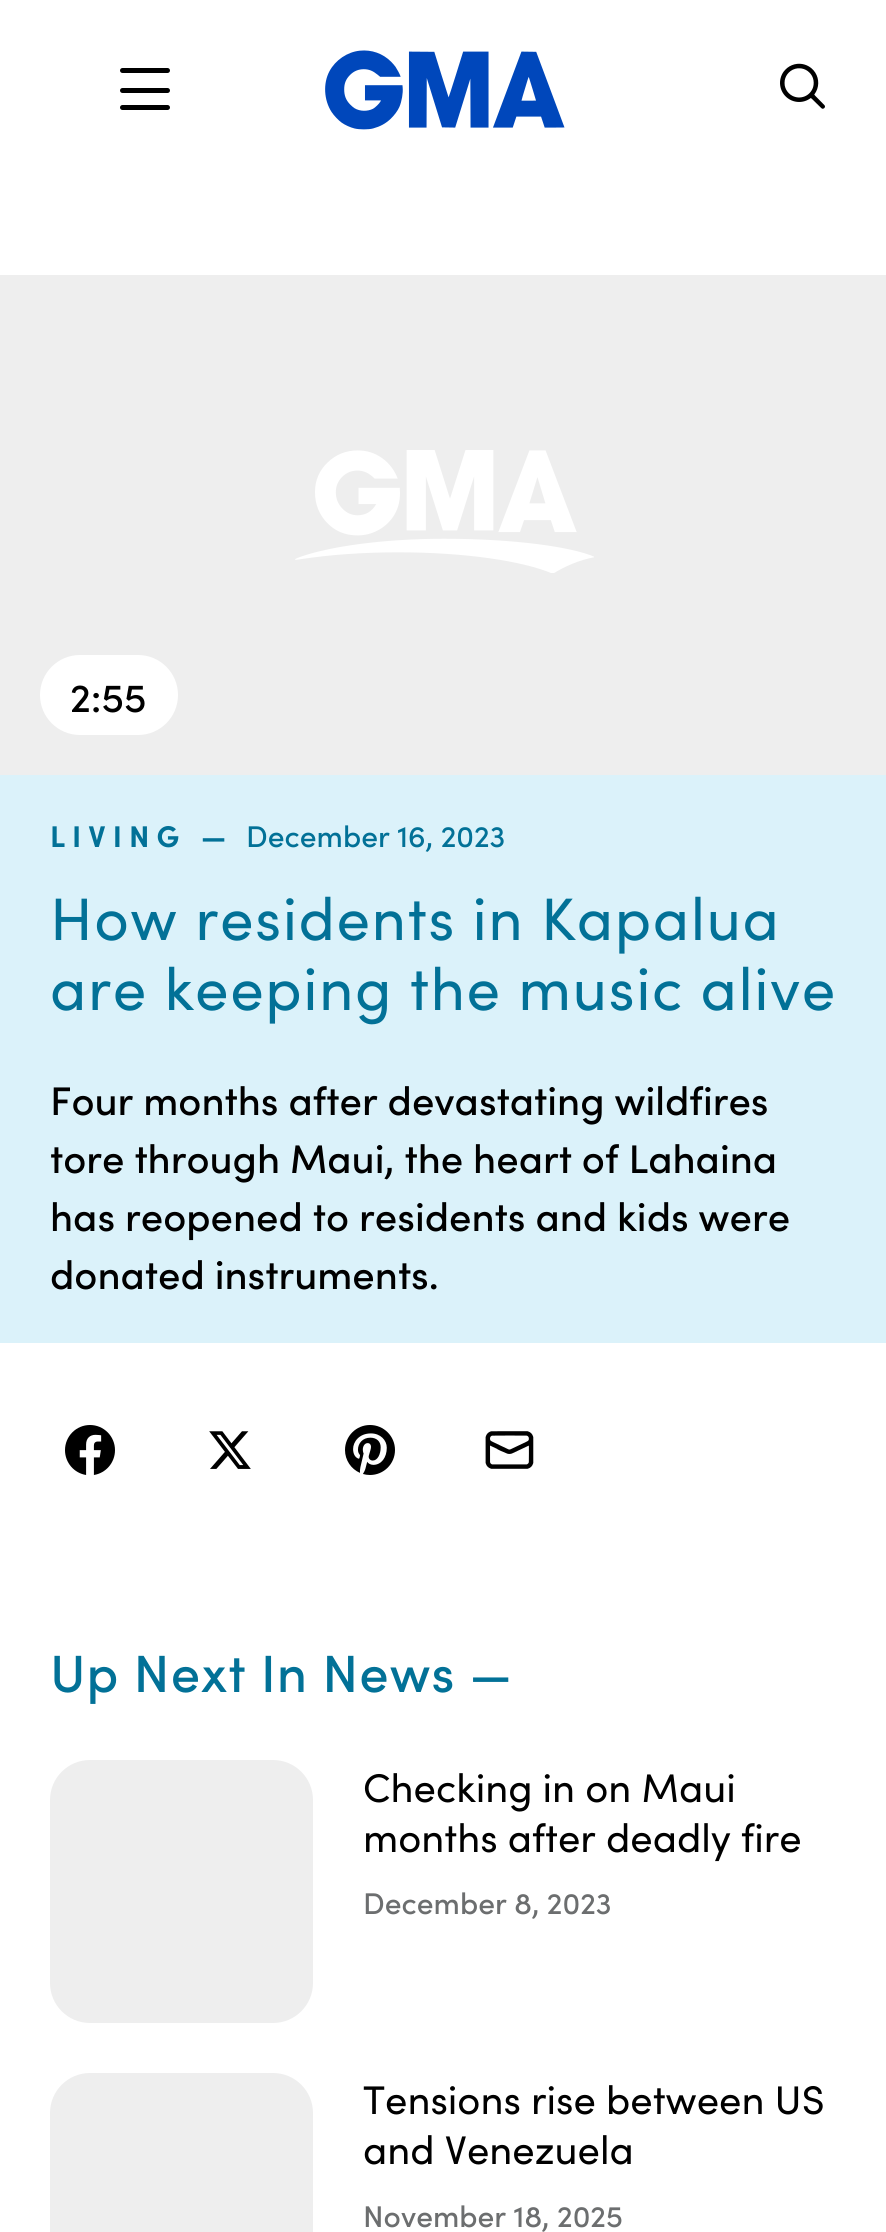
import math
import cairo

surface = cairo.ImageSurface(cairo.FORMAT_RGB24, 886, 2232)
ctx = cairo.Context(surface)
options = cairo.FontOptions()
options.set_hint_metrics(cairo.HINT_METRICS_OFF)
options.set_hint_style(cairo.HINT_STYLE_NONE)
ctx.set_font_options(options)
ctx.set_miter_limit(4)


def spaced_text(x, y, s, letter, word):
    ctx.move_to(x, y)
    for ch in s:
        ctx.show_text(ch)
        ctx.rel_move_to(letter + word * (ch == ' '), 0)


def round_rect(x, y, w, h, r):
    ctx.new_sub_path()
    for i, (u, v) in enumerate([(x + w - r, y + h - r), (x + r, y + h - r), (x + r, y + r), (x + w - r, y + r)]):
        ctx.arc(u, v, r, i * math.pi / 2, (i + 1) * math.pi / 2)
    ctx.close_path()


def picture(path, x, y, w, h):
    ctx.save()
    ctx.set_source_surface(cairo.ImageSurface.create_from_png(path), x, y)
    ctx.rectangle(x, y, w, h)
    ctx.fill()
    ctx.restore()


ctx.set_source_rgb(1, 1, 1)
ctx.paint()
picture("img1.png", 325, 50, 240, 80)
ctx.set_source_rgb(0, 0, 0)
round_rect(120, 88, 50, 5, 2.5)
ctx.fill()
round_rect(120, 68, 50, 5, 2.5)
ctx.fill()
round_rect(120, 105, 50, 5, 2.5)
ctx.fill()
picture("img2.png", 780, 63, 45, 46)
ctx.set_source_rgb(0.859, 0.949, 0.98)
ctx.rectangle(0, 775, 886, 568)
ctx.fill()
ctx.set_source_rgb(0.933, 0.933, 0.933)
ctx.rectangle(0, 275, 886, 500)
ctx.fill()
picture("img3.png", 295, 450, 299, 123)
ctx.set_source_rgb(1, 1, 1)
round_rect(40, 655, 138, 80, 40)
ctx.fill()
ctx.select_font_face("Sofia Medium")
ctx.set_font_size(40)
ctx.set_source_rgb(0, 0, 0)
ctx.move_to(70, 712)
ctx.show_text("2:55")
ctx.select_font_face("Sofia", cairo.FONT_SLANT_NORMAL, cairo.FONT_WEIGHT_BOLD)
ctx.set_font_size(30)
ctx.set_source_rgb(0.008, 0.443, 0.592)
spaced_text(50, 847, "LIVING", 7, 0)
ctx.move_to(201, 847)
ctx.show_text("—")
ctx.select_font_face("Sofia Medium")
ctx.move_to(246, 847)
ctx.show_text("December 16, 2023")
ctx.select_font_face("Sofia")
ctx.set_font_size(60)
spaced_text(50, 940, "How residents in Kapalua", 1.5, 0)
spaced_text(50, 1010, "are keeping the music alive", 1.5, 0)
ctx.select_font_face("Sofia Medium")
ctx.set_font_size(40)
ctx.set_source_rgb(0, 0, 0)
ctx.move_to(50, 1115)
ctx.show_text("Four months after devastating wildfires")
ctx.move_to(50, 1173)
ctx.show_text("tore through Maui, the heart of Lahaina")
ctx.move_to(50, 1231)
ctx.show_text("has reopened to residents and kids were")
ctx.move_to(50, 1289)
ctx.show_text("donated instruments.")
picture("img4.png", 65, 1425, 50, 50)
picture("img5.png", 209, 1431, 42, 38)
picture("img6.png", 345, 1425, 50, 50)
picture("img7.png", 485, 1431, 49, 38)
ctx.set_font_size(52.5)
ctx.set_source_rgb(0.008, 0.443, 0.592)
spaced_text(50, 1692, "Up Next In News —", 1, 0)
ctx.set_source_rgb(0.933, 0.933, 0.933)
round_rect(50, 1760, 263, 263, 40)
ctx.fill()
ctx.select_font_face("Sofia")
ctx.set_font_size(40)
ctx.set_source_rgb(0, 0, 0)
ctx.move_to(363, 1802)
ctx.show_text("Checking in on Maui")
ctx.move_to(363, 1852)
ctx.show_text("months after deadly fire")
ctx.select_font_face("Sofia Medium")
ctx.set_font_size(30)
ctx.set_source_rgb(0.424, 0.431, 0.435)
ctx.move_to(363, 1914)
ctx.show_text("December 8, 2023")
ctx.set_source_rgb(0.933, 0.933, 0.933)
round_rect(50, 2073, 263, 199, 40)
ctx.fill()
ctx.select_font_face("Sofia")
ctx.set_font_size(40)
ctx.set_source_rgb(0, 0, 0)
ctx.move_to(363, 2114)
ctx.show_text("Tensions rise between US")
ctx.move_to(363, 2164)
ctx.show_text("and Venezuela")
ctx.select_font_face("Sofia Medium")
ctx.set_font_size(30)
ctx.set_source_rgb(0.424, 0.431, 0.435)
ctx.move_to(363, 2227)
ctx.show_text("November 18, 2025")
surface.write_to_png("page.png")
